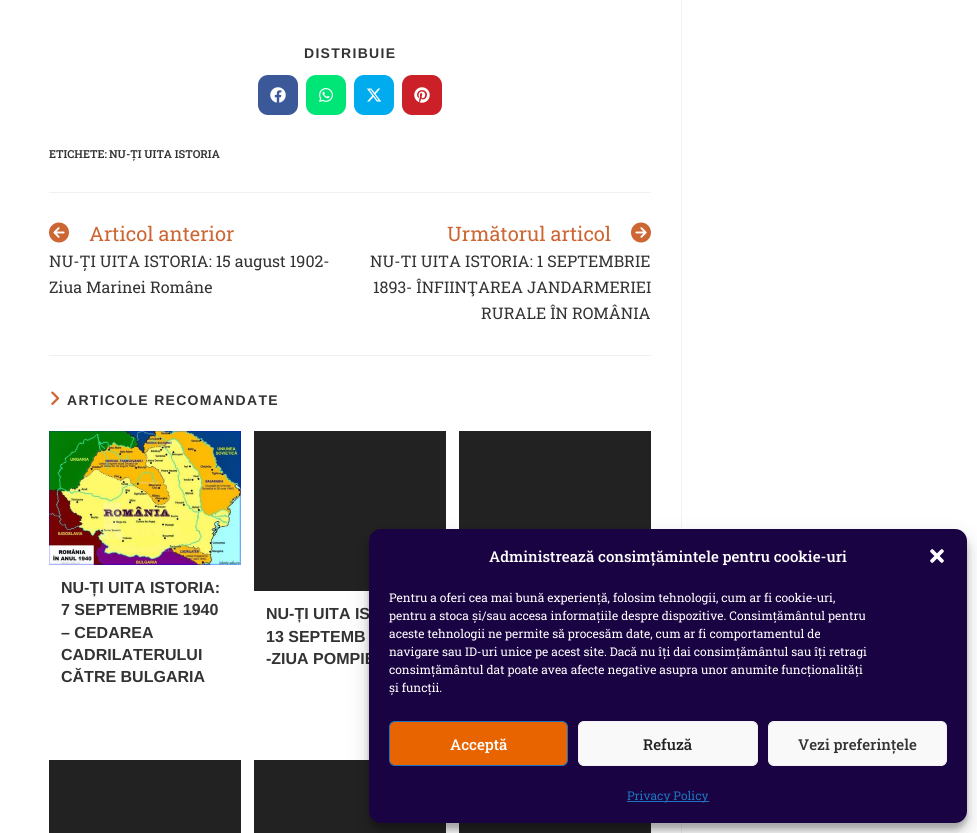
import math
import cairo

surface = cairo.ImageSurface(cairo.FORMAT_RGB24, 977, 833)
ctx = cairo.Context(surface)
options = cairo.FontOptions()
options.set_hint_metrics(cairo.HINT_METRICS_OFF)
options.set_hint_style(cairo.HINT_STYLE_NONE)
ctx.set_font_options(options)
ctx.set_miter_limit(4)


def spaced_text(x, y, s, letter, word):
    ctx.move_to(x, y)
    for ch in s:
        ctx.show_text(ch)
        ctx.rel_move_to(letter + word * (ch == ' '), 0)


def round_rect(x, y, w, h, r):
    ctx.new_sub_path()
    for i, (u, v) in enumerate([(x + w - r, y + h - r), (x + r, y + h - r), (x + r, y + r), (x + w - r, y + r)]):
        ctx.arc(u, v, r, i * math.pi / 2, (i + 1) * math.pi / 2)
    ctx.close_path()


def shadow(x, y, w, h, r, blur, alpha):
    ctx.push_group_with_content(cairo.CONTENT_ALPHA)
    ctx.set_operator(cairo.OPERATOR_SOURCE)
    for i in range(15, -16, -2):
        e = blur * i / 6
        if min(w, h) + 2 * e > 0:
            ctx.set_source_rgba(0, 0, 0, alpha * math.erfc((i - 1) / 8.5) / 2)
            round_rect(x - e, y - e, w + 2 * e, h + 2 * e, max(0, min(r + e + blur * .6, min(w, h) / 2 + e)))
            ctx.fill()
    ctx.mask(ctx.pop_group())


def picture(path, x, y, w, h):
    ctx.save()
    ctx.set_source_surface(cairo.ImageSurface.create_from_png(path), x, y)
    ctx.rectangle(x, y, w, h)
    ctx.fill()
    ctx.restore()


ctx.set_source_rgb(1, 1, 1)
ctx.paint()
ctx.set_source_rgb(0.945, 0.945, 0.945)
ctx.rectangle(681, 0, 1, 833)
ctx.fill()
ctx.select_font_face("Liberation Sans", cairo.FONT_SLANT_NORMAL, cairo.FONT_WEIGHT_BOLD)
ctx.set_font_size(14)
ctx.set_source_rgb(0.2, 0.2, 0.2)
spaced_text(304, 58, "DISTRIBUIE", 1.3, 0)
ctx.set_source_rgb(0.231, 0.349, 0.596)
round_rect(258, 75, 40, 40, 10)
ctx.fill()
picture("img1.png", 270, 87, 16, 16)
ctx.set_source_rgb(0, 0.902, 0.463)
round_rect(306, 75, 40, 40, 10)
ctx.fill()
picture("img2.png", 319, 88, 14, 14)
ctx.set_source_rgb(0, 0.675, 0.929)
round_rect(354, 75, 40, 40, 10)
ctx.fill()
picture("img3.png", 367, 88, 15, 14)
ctx.set_source_rgb(0.796, 0.125, 0.153)
round_rect(402, 75, 40, 40, 10)
ctx.fill()
picture("img4.png", 414, 87, 16, 16)
ctx.select_font_face("Roboto Slab SemiBold")
ctx.set_font_size(11)
ctx.set_source_rgb(0.2, 0.2, 0.2)
ctx.move_to(49, 158)
ctx.show_text("ETICHETE:")
ctx.move_to(109, 158)
ctx.show_text("NU-ȚI UITA ISTORIA")
ctx.set_source_rgb(0.945, 0.945, 0.945)
ctx.rectangle(49, 192, 602, 1)
ctx.fill()
picture("img5.png", 49, 222, 20, 21)
ctx.select_font_face("Roboto Slab")
ctx.set_font_size(20)
ctx.set_source_rgb(0.8, 0.4, 0.2)
ctx.move_to(89, 241)
ctx.show_text("Articol anterior")
ctx.set_font_size(16)
ctx.set_source_rgb(0.2, 0.2, 0.2)
ctx.move_to(49, 267)
ctx.show_text("NU-ȚI UITA ISTORIA: 15 august 1902-")
ctx.move_to(49, 293)
ctx.show_text("Ziua Marinei Române")
ctx.set_font_size(20)
ctx.set_source_rgb(0.8, 0.4, 0.2)
ctx.move_to(447, 241)
ctx.show_text("Următorul articol")
picture("img6.png", 631, 222, 20, 21)
ctx.set_font_size(16)
ctx.set_source_rgb(0.2, 0.2, 0.2)
ctx.move_to(370, 267)
ctx.show_text("NU-TI UITA ISTORIA: 1 SEPTEMBRIE")
ctx.move_to(373, 293)
ctx.show_text("1893- ÎNFIINŢAREA JANDARMERIEI")
ctx.move_to(481, 319)
ctx.show_text("RURALE ÎN ROMÂNIA")
ctx.set_source_rgb(0.945, 0.945, 0.945)
ctx.rectangle(49, 355, 602, 1)
ctx.fill()
picture("img7.png", 51, 391, 9, 14)
ctx.select_font_face("Liberation Sans", cairo.FONT_SLANT_NORMAL, cairo.FONT_WEIGHT_BOLD)
ctx.set_font_size(14)
ctx.set_source_rgb(0.2, 0.2, 0.2)
spaced_text(67, 405, "ARTICOLE RECOMANDATE", 1.3, 0)
ctx.set_source_rgb(0.133, 0.133, 0.133)
ctx.rectangle(459, 431, 192, 98)
ctx.fill()
picture("img8.png", 49, 431, 192, 134)
ctx.set_font_size(16)
ctx.set_source_rgb(0.2, 0.2, 0.2)
ctx.move_to(61, 593)
ctx.show_text("NU-ȚI UITA ISTORIA:")
ctx.move_to(61, 615)
ctx.show_text("7 SEPTEMBRIE 1940")
ctx.move_to(61, 638)
ctx.show_text("– CEDAREA")
ctx.move_to(61, 660)
ctx.show_text("CADRILATERULUI")
ctx.move_to(61, 682)
ctx.show_text("CĂTRE BULGARIA")
ctx.set_source_rgb(0.133, 0.133, 0.133)
ctx.rectangle(254, 431, 192, 160)
ctx.fill()
ctx.set_source_rgb(0.2, 0.2, 0.2)
ctx.move_to(266, 619)
ctx.show_text("NU-ȚI UITA IS")
ctx.move_to(266, 642)
ctx.show_text("13 SEPTEMB")
ctx.move_to(266, 664)
ctx.show_text("-ZIUA POMPIE")
ctx.set_source_rgb(0.133, 0.133, 0.133)
ctx.rectangle(49, 760, 192, 73)
ctx.fill()
ctx.rectangle(254, 760, 192, 73)
ctx.fill()
ctx.rectangle(459, 823, 192, 10)
ctx.fill()
ctx.set_source_rgb(0, 0, 0)
shadow(369, 535, 598, 294, 12, 3, 0.23)
shadow(369, 539, 598, 294, 12, 10, 0.19)
ctx.set_source_rgb(0.098, 0.012, 0.259)
round_rect(369, 529, 598, 294, 12)
ctx.fill()
ctx.select_font_face("Roboto Slab Medium")
ctx.set_font_size(15)
ctx.set_source_rgb(1, 1, 1)
ctx.move_to(489, 562)
ctx.show_text("Administrează consimțămintele pentru cookie-uri")
picture("img9.png", 930, 549, 14, 14)
ctx.select_font_face("Roboto Slab")
ctx.set_font_size(12)
ctx.move_to(389, 602)
ctx.show_text("Pentru a oferi cea mai bună experiență, folosim tehnologii, cum ar fi cookie-uri,")
ctx.move_to(389, 620)
ctx.show_text("pentru a stoca și/sau accesa informațiile despre dispozitive. Consimțământul pentru")
ctx.move_to(389, 638)
ctx.show_text("aceste tehnologii ne permite să procesăm date, cum ar fi comportamentul de")
ctx.move_to(389, 656)
ctx.show_text("navigare sau ID-uri unice pe acest site. Dacă nu îți dai consimțământul sau îți retragi")
ctx.move_to(389, 674)
ctx.show_text("consimțământul dat poate avea afecte negative asupra unor anumite funcționalități")
ctx.move_to(389, 692)
ctx.show_text("și funcții.")
ctx.set_source_rgb(0.91, 0.392, 0)
round_rect(389.5, 721.5, 178, 44, 5.5)
ctx.fill_preserve()
ctx.set_source_rgb(0.118, 0.451, 0.745)
ctx.set_line_width(1)
ctx.stroke()
ctx.select_font_face("Roboto Slab Medium")
ctx.set_font_size(15)
ctx.set_source_rgb(1, 1, 1)
ctx.move_to(450, 750)
ctx.show_text("Acceptă")
ctx.set_source_rgb(0.976, 0.976, 0.976)
round_rect(578.5, 721.5, 179, 44, 5.5)
ctx.fill_preserve()
ctx.set_source_rgb(0.949, 0.949, 0.949)
ctx.stroke()
ctx.set_source_rgb(0.133, 0.133, 0.133)
ctx.move_to(643, 750)
ctx.show_text("Refuză")
ctx.set_source_rgb(0.976, 0.976, 0.976)
round_rect(768.5, 721.5, 178, 44, 5.5)
ctx.fill_preserve()
ctx.set_source_rgb(0.949, 0.949, 0.949)
ctx.stroke()
ctx.set_source_rgb(0.2, 0.2, 0.2)
ctx.move_to(798, 750)
ctx.show_text("Vezi preferințele")
ctx.set_source_rgb(0.118, 0.451, 0.745)
ctx.rectangle(627, 801, 82, 1)
ctx.fill()
ctx.select_font_face("Roboto Slab")
ctx.set_font_size(12)
ctx.move_to(627, 800)
ctx.show_text("Privacy Policy")
surface.write_to_png("page.png")
